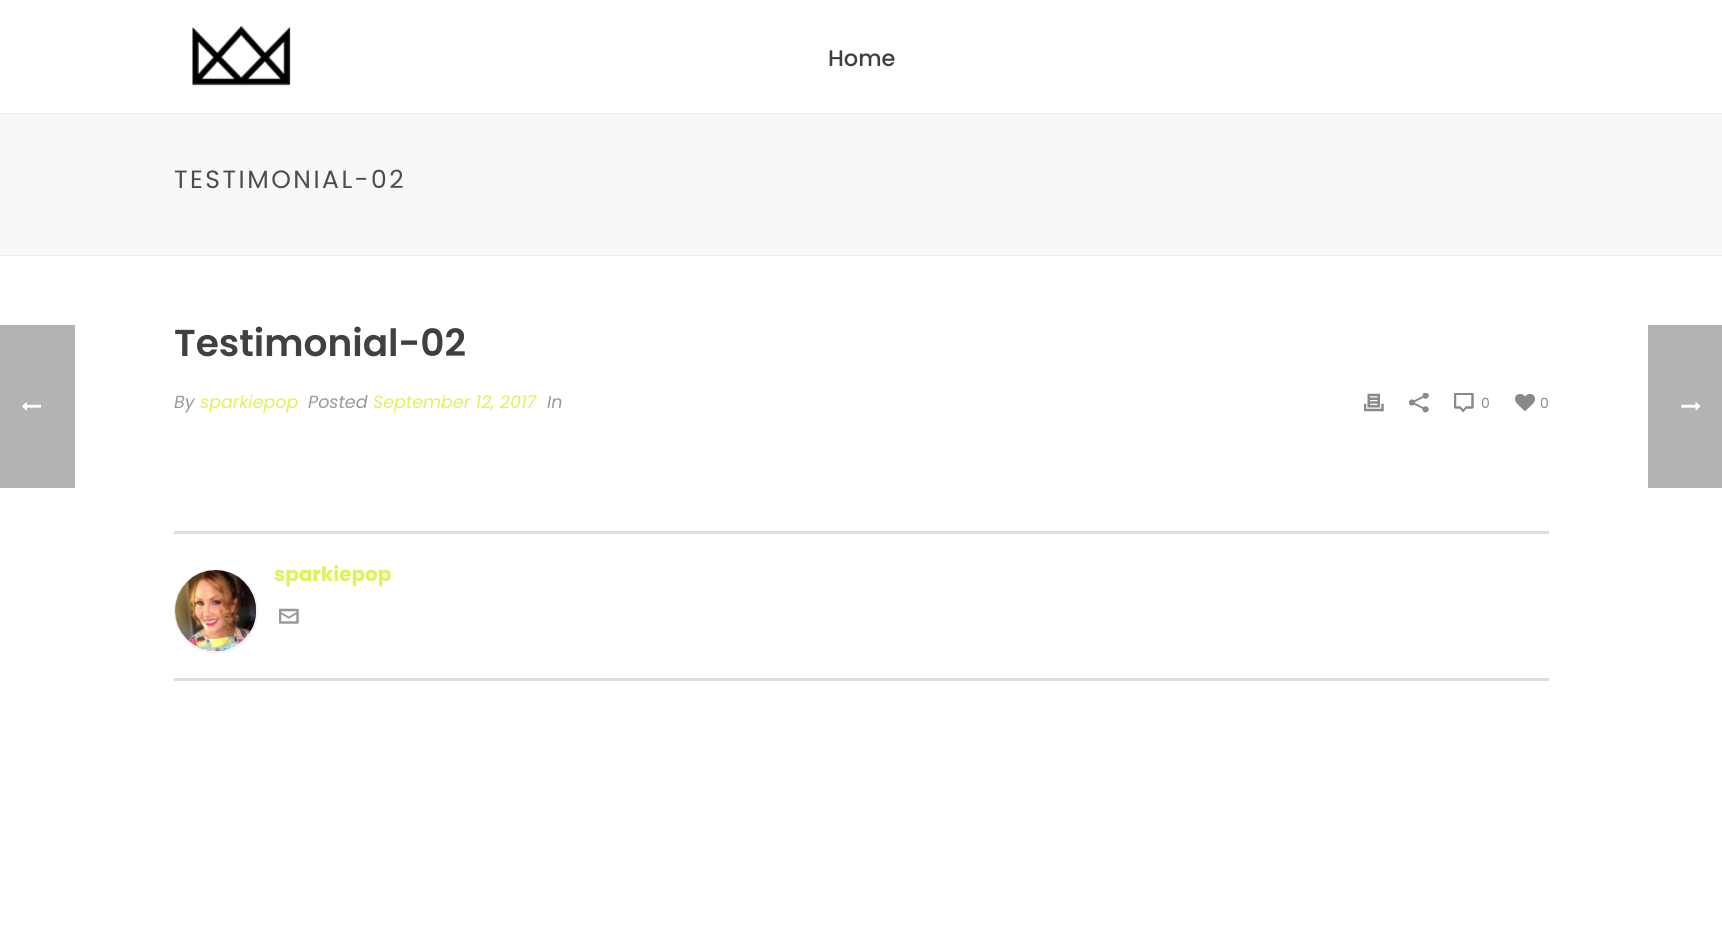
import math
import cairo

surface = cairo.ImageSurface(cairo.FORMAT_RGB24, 1722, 936)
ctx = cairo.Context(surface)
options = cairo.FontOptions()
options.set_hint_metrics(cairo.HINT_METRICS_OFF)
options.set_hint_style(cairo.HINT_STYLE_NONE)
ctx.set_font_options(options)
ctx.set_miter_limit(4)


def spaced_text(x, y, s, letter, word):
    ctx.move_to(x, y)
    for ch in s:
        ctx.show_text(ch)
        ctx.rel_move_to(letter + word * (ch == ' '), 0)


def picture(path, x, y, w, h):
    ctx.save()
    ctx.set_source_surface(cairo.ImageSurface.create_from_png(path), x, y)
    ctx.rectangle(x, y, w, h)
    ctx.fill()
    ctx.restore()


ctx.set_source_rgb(1, 1, 1)
ctx.paint()
ctx.set_source_rgb(0.702, 0.702, 0.702)
ctx.rectangle(0, 325, 75, 163)
ctx.fill()
picture("img1.png", 22, 402, 19, 9)
ctx.set_source_rgb(0.969, 0.969, 0.969)
ctx.rectangle(0, 114, 1722, 141)
ctx.fill()
ctx.set_source_rgb(0.929, 0.929, 0.929)
ctx.rectangle(0, 255, 1722, 1)
ctx.fill()
ctx.rectangle(0, 113, 1722, 1)
ctx.fill()
picture("img2.png", 192, 26, 99, 60)
ctx.select_font_face("Poppins Medium")
ctx.set_font_size(22.5)
ctx.set_source_rgb(0.251, 0.251, 0.251)
ctx.move_to(828, 66)
ctx.show_text("Home")
ctx.select_font_face("Poppins")
ctx.set_font_size(25)
ctx.set_source_rgb(0.302, 0.302, 0.302)
spaced_text(174, 188, "TESTIMONIAL-02", 2.5, 0)
ctx.select_font_face("Poppins SemiBold")
ctx.set_font_size(37.5)
ctx.set_source_rgb(0.251, 0.251, 0.251)
ctx.move_to(174, 356)
ctx.show_text("Testimonial-02")
ctx.select_font_face("Poppins", cairo.FONT_SLANT_ITALIC)
ctx.set_font_size(17.5)
ctx.set_source_rgb(0.6, 0.6, 0.6)
ctx.move_to(174, 408)
ctx.show_text("By")
ctx.set_source_rgb(0.878, 0.949, 0.349)
ctx.move_to(200, 408)
ctx.show_text("sparkiepop")
ctx.set_source_rgb(0.6, 0.6, 0.6)
ctx.move_to(308, 408)
ctx.show_text("Posted")
ctx.set_source_rgb(0.878, 0.949, 0.349)
ctx.move_to(373, 408)
ctx.show_text("September 12, 2017")
ctx.set_source_rgb(0.6, 0.6, 0.6)
ctx.move_to(547, 408)
ctx.show_text("In")
picture("img3.png", 1364, 393, 20, 19)
picture("img4.png", 1409, 393, 20, 20)
picture("img5.png", 1454, 393, 20, 20)
ctx.select_font_face("Poppins")
ctx.set_font_size(14)
ctx.set_source_rgb(0.537, 0.537, 0.537)
ctx.move_to(1481, 408)
ctx.show_text("0")
picture("img6.png", 1515, 393, 20, 18)
ctx.move_to(1540, 408)
ctx.show_text("0")
ctx.set_source_rgb(0.867, 0.867, 0.867)
ctx.rectangle(174, 531, 1375, 3)
ctx.fill()
ctx.rectangle(174, 678, 1375, 3)
ctx.fill()
ctx.arc(216, 611, 41.5, 0, 2 * math.pi)
ctx.set_source_rgb(0.933, 0.933, 0.933)
ctx.set_line_width(1)
ctx.stroke()
picture("img7.png", 175, 570, 82, 82)
ctx.select_font_face("Poppins", cairo.FONT_SLANT_NORMAL, cairo.FONT_WEIGHT_BOLD)
ctx.set_font_size(20)
ctx.set_source_rgb(0.878, 0.949, 0.349)
ctx.move_to(274, 581)
ctx.show_text("sparkiepop")
picture("img8.png", 279, 608, 20, 16)
ctx.set_source_rgb(0.702, 0.702, 0.702)
ctx.rectangle(1648, 325, 74, 163)
ctx.fill()
picture("img9.png", 1681, 402, 20, 9)
surface.write_to_png("page.png")
